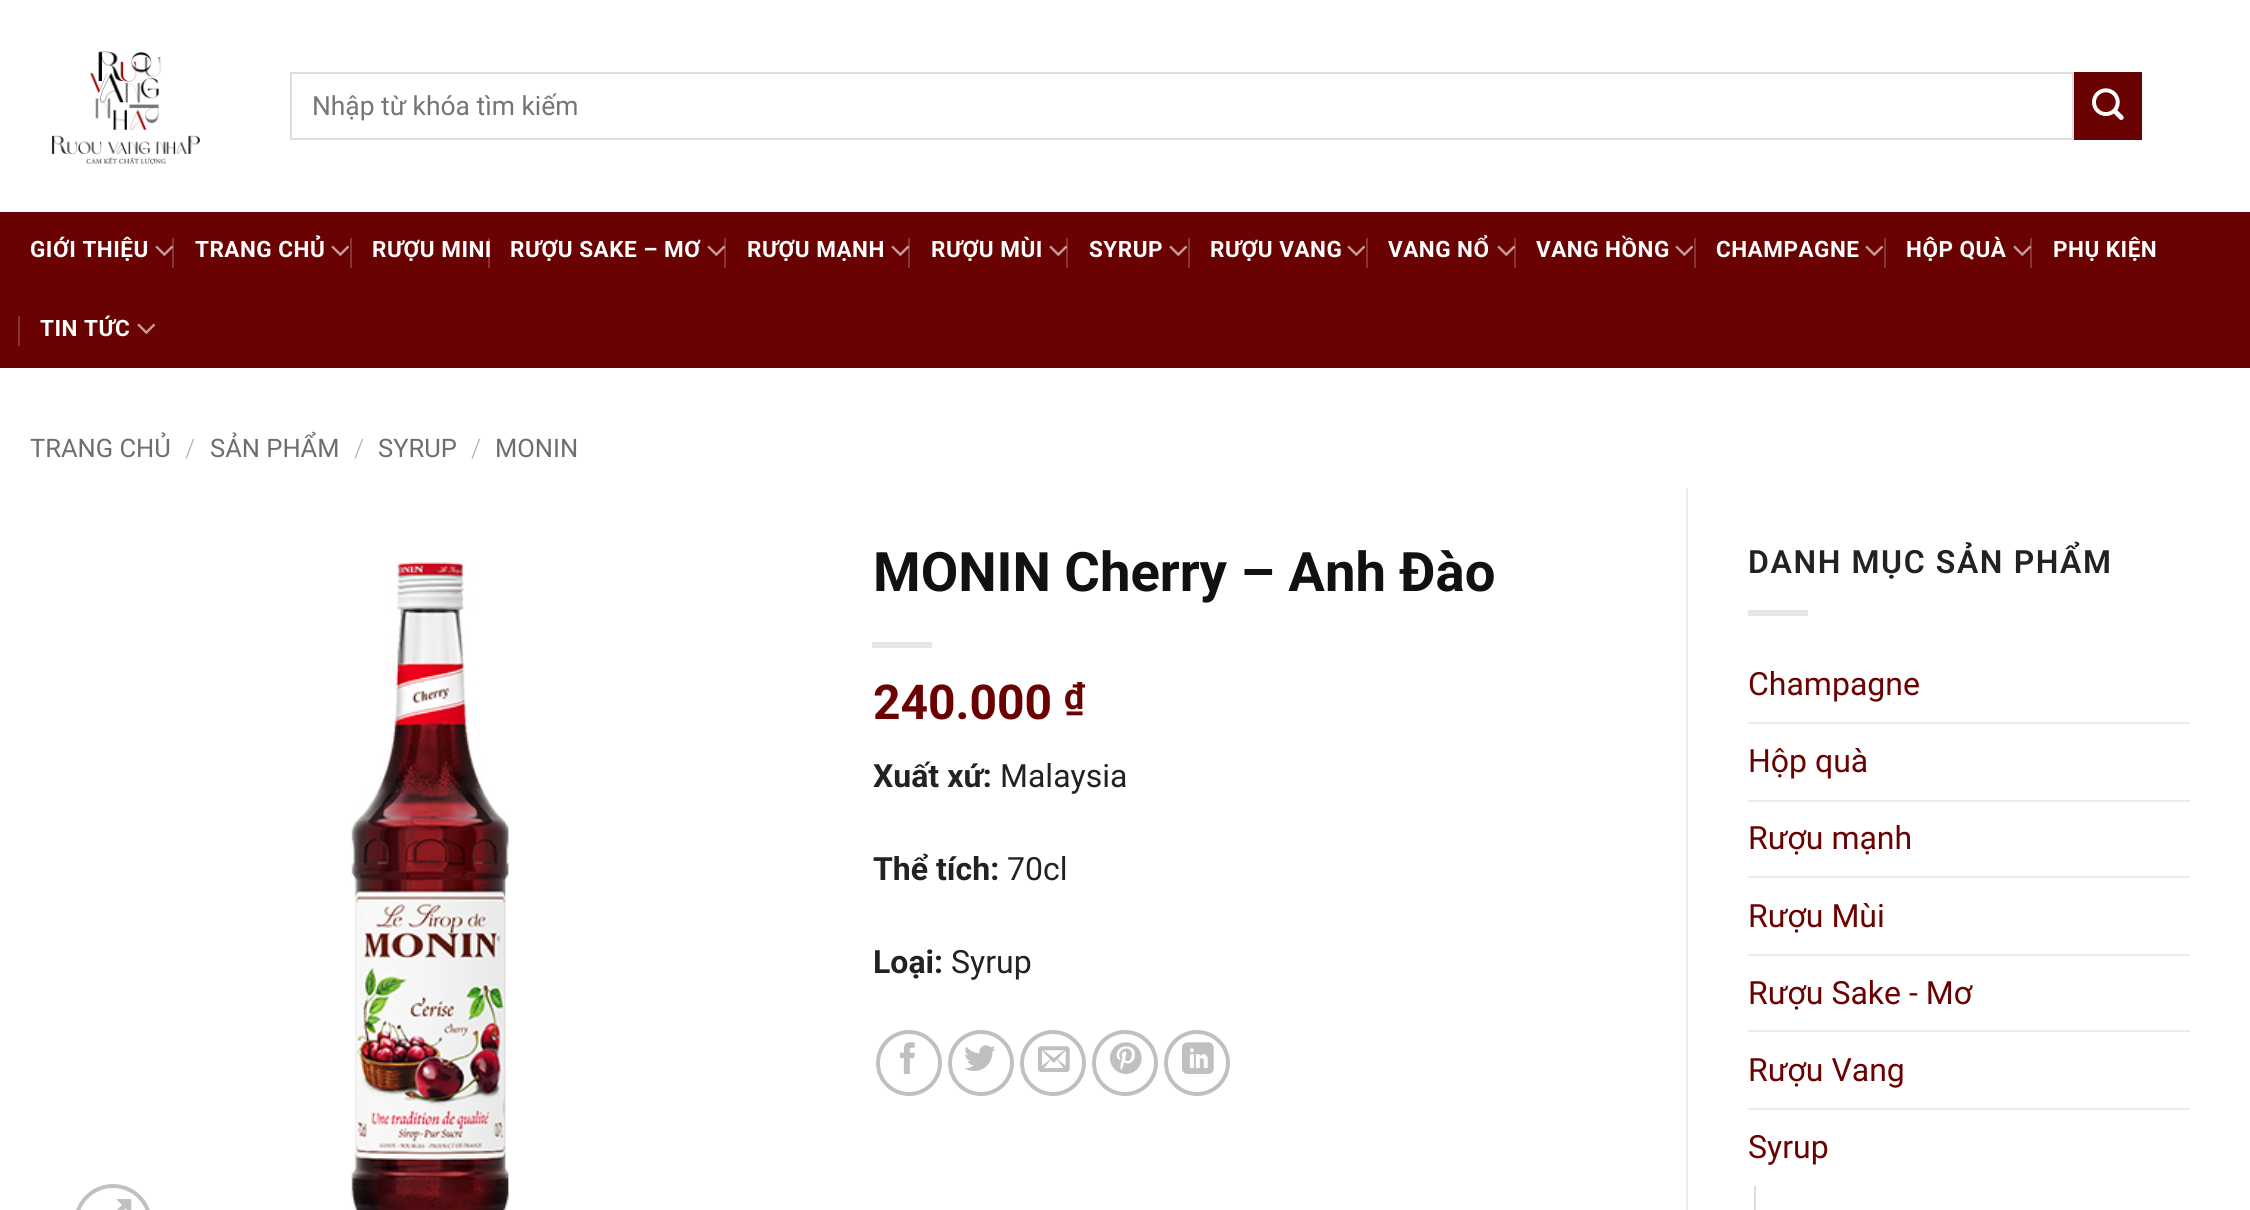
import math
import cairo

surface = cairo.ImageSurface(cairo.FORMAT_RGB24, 2250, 1210)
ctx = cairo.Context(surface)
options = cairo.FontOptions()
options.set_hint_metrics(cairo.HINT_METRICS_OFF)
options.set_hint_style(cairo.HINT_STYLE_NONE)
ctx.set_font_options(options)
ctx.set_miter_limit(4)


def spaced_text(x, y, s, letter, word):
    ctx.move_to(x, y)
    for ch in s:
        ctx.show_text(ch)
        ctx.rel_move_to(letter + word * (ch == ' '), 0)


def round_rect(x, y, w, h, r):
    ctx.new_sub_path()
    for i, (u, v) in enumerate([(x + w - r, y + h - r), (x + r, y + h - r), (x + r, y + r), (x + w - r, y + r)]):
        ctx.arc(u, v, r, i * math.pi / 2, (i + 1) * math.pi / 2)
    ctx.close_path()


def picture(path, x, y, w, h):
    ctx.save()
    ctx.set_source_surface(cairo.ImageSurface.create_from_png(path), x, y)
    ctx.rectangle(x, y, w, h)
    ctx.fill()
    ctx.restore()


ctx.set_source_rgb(1, 1, 1)
ctx.paint()
picture("img1.png", 51, 51, 149, 114)
ctx.rectangle(291, 73, 1782, 66)
ctx.set_source_rgb(0.867, 0.867, 0.867)
ctx.stroke()
ctx.select_font_face("Roboto")
ctx.set_font_size(26.4)
ctx.set_source_rgb(0.459, 0.459, 0.459)
ctx.move_to(312, 115)
ctx.show_text("Nhập từ khóa tìm kiếm")
ctx.set_source_rgb(0.416, 0.008, 0.008)
ctx.rectangle(2075, 73, 66, 66)
ctx.fill_preserve()
ctx.set_source_rgb(0.396, 0.008, 0.008)
ctx.stroke()
picture("img2.png", 2092, 88, 32, 32)
ctx.set_source_rgb(0.416, 0.008, 0.008)
ctx.rectangle(0, 212, 2250, 156)
ctx.fill()
ctx.select_font_face("Roboto", cairo.FONT_SLANT_NORMAL, cairo.FONT_WEIGHT_BOLD)
ctx.set_font_size(22.5)
ctx.set_source_rgb(1, 1, 1)
spaced_text(30, 257, "GIỚI THIỆU", 0.5, 0)
picture("img3.png", 155, 245, 19, 11)
ctx.set_source_rgba(1, 1, 1, 0.2)
ctx.rectangle(172, 238, 2, 30)
ctx.fill()
ctx.set_source_rgb(1, 1, 1)
spaced_text(195, 257, "TRANG CHỦ", 0.5, 0)
picture("img3.png", 331, 245, 19, 11)
ctx.set_source_rgb(0.533, 0.208, 0.208)
ctx.rectangle(350, 238, 2, 30)
ctx.fill()
ctx.set_source_rgb(1, 1, 1)
spaced_text(372, 257, "RƯỢU MINI", 0.5, 0)
ctx.set_source_rgba(1, 1, 1, 0.2)
ctx.rectangle(488, 238, 2, 30)
ctx.fill()
ctx.set_source_rgb(1, 1, 1)
spaced_text(510, 257, "RƯỢU SAKE – MƠ", 0.5, 0)
picture("img3.png", 707, 245, 19, 11)
ctx.set_source_rgba(1, 1, 1, 0.2)
ctx.rectangle(724, 238, 2, 30)
ctx.fill()
ctx.set_source_rgb(1, 1, 1)
spaced_text(747, 257, "RƯỢU MẠNH", 0.5, 0)
picture("img3.png", 891, 245, 19, 11)
ctx.set_source_rgba(1, 1, 1, 0.2)
ctx.rectangle(908, 238, 2, 30)
ctx.fill()
ctx.set_source_rgb(1, 1, 1)
spaced_text(931, 257, "RƯỢU MÙI", 0.5, 0)
picture("img3.png", 1049, 245, 19, 11)
ctx.set_source_rgba(1, 1, 1, 0.2)
ctx.rectangle(1066, 238, 2, 30)
ctx.fill()
ctx.set_source_rgb(1, 1, 1)
spaced_text(1089, 257, "SYRUP", 0.5, 0)
picture("img3.png", 1169, 245, 19, 11)
ctx.set_source_rgb(0.533, 0.208, 0.208)
ctx.rectangle(1188, 238, 2, 30)
ctx.fill()
ctx.set_source_rgb(1, 1, 1)
spaced_text(1210, 257, "RƯỢU VANG", 0.5, 0)
picture("img3.png", 1347, 245, 19, 11)
ctx.set_source_rgb(0.533, 0.208, 0.208)
ctx.rectangle(1366, 238, 2, 30)
ctx.fill()
ctx.set_source_rgb(1, 1, 1)
spaced_text(1388, 257, "VANG NỔ", 0.5, 0)
picture("img3.png", 1497, 245, 19, 11)
ctx.set_source_rgba(1, 1, 1, 0.2)
ctx.rectangle(1514, 238, 2, 30)
ctx.fill()
ctx.set_source_rgb(1, 1, 1)
spaced_text(1536, 257, "VANG HỒNG", 0.5, 0)
picture("img3.png", 1675, 245, 19, 11)
ctx.set_source_rgb(0.533, 0.208, 0.208)
ctx.rectangle(1694, 238, 2, 30)
ctx.fill()
ctx.set_source_rgb(1, 1, 1)
spaced_text(1716, 257, "CHAMPAGNE", 0.5, 0)
picture("img3.png", 1865, 245, 19, 11)
ctx.set_source_rgb(0.533, 0.208, 0.208)
ctx.rectangle(1884, 238, 2, 30)
ctx.fill()
ctx.set_source_rgb(1, 1, 1)
spaced_text(1906, 257, "HỘP QUÀ", 0.5, 0)
picture("img3.png", 2013, 245, 19, 11)
ctx.set_source_rgba(1, 1, 1, 0.2)
ctx.rectangle(2030, 238, 2, 30)
ctx.fill()
ctx.set_source_rgb(1, 1, 1)
spaced_text(2053, 257, "PHỤ KIỆN", 0.5, 0)
ctx.set_source_rgb(0.533, 0.208, 0.208)
ctx.rectangle(18, 316, 2, 30)
ctx.fill()
ctx.set_source_rgb(1, 1, 1)
spaced_text(40, 336, "TIN TỨC", 0.5, 0)
picture("img3.png", 137, 323, 19, 11)
ctx.select_font_face("Roboto")
ctx.set_font_size(25.5)
ctx.set_source_rgb(0.431, 0.431, 0.431)
ctx.move_to(30, 457)
ctx.show_text("TRANG CHỦ")
ctx.select_font_face("Roboto Light")
ctx.set_source_rgb(0.698, 0.698, 0.698)
ctx.move_to(185, 457)
ctx.show_text("/")
ctx.select_font_face("Roboto")
ctx.set_source_rgb(0.431, 0.431, 0.431)
ctx.move_to(210, 457)
ctx.show_text("SẢN PHẨM")
ctx.select_font_face("Roboto Light")
ctx.set_source_rgb(0.698, 0.698, 0.698)
ctx.move_to(354, 457)
ctx.show_text("/")
ctx.select_font_face("Roboto")
ctx.set_source_rgb(0.431, 0.431, 0.431)
ctx.move_to(378, 457)
ctx.show_text("SYRUP")
ctx.select_font_face("Roboto Light")
ctx.set_source_rgb(0.698, 0.698, 0.698)
ctx.move_to(471, 457)
ctx.show_text("/")
ctx.select_font_face("Roboto")
ctx.set_source_rgb(0.431, 0.431, 0.431)
ctx.move_to(495, 457)
ctx.show_text("MONIN")
ctx.set_source_rgb(0.925, 0.925, 0.925)
ctx.rectangle(1686, 488, 2, 722)
ctx.fill()
picture("img4.png", 351, 562, 158, 648)
round_rect(76, 1186, 74, 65, 37)
ctx.set_source_rgb(0.753, 0.753, 0.753)
ctx.set_line_width(4)
ctx.stroke()
picture("img5.png", 116, 1199, 16, 11)
ctx.select_font_face("Roboto", cairo.FONT_SLANT_NORMAL, cairo.FONT_WEIGHT_BOLD)
ctx.set_font_size(54.4)
ctx.set_source_rgb(0.067, 0.067, 0.067)
ctx.move_to(873, 591)
ctx.show_text("MONIN Cherry – Anh Đào")
ctx.set_source_rgb(0.902, 0.902, 0.902)
ctx.rectangle(872, 642, 60, 6)
ctx.fill()
ctx.set_font_size(48)
ctx.set_source_rgb(0.416, 0.008, 0.008)
ctx.move_to(873, 719)
ctx.show_text("240.000")
ctx.set_font_size(36)
ctx.move_to(1064, 709)
ctx.show_text("₫")
ctx.set_font_size(32)
ctx.set_source_rgb(0.133, 0.133, 0.133)
ctx.move_to(873, 787)
ctx.show_text("Xuất xứ:")
ctx.select_font_face("Roboto")
ctx.move_to(1000, 787)
ctx.show_text("Malaysia")
ctx.select_font_face("Roboto", cairo.FONT_SLANT_NORMAL, cairo.FONT_WEIGHT_BOLD)
ctx.move_to(873, 880)
ctx.show_text("Thể tích:")
ctx.select_font_face("Roboto")
ctx.move_to(1007, 880)
ctx.show_text("70cl")
ctx.select_font_face("Roboto", cairo.FONT_SLANT_NORMAL, cairo.FONT_WEIGHT_BOLD)
ctx.move_to(873, 973)
ctx.show_text("Loại:")
ctx.select_font_face("Roboto")
ctx.move_to(951, 973)
ctx.show_text("Syrup")
ctx.new_path()
ctx.arc(909, 1063, 31, 0, 2 * math.pi)
ctx.set_source_rgb(0.753, 0.753, 0.753)
ctx.stroke()
picture("img6.png", 899, 1042, 16, 32)
ctx.arc(981, 1063, 31, 0, 2 * math.pi)
ctx.stroke()
picture("img7.png", 964, 1045, 32, 26)
ctx.arc(1053, 1063, 31, 0, 2 * math.pi)
ctx.stroke()
picture("img8.png", 1038, 1046, 32, 26)
ctx.arc(1125, 1063, 31, 0, 2 * math.pi)
ctx.stroke()
picture("img9.png", 1110, 1042, 32, 32)
ctx.arc(1197, 1063, 31, 0, 2 * math.pi)
ctx.stroke()
picture("img10.png", 1182, 1042, 32, 32)
ctx.select_font_face("Roboto SemiBold")
ctx.set_source_rgb(0.133, 0.133, 0.133)
spaced_text(1748, 573, "DANH MỤC SẢN PHẨM", 1.6, 0)
ctx.set_source_rgb(0.902, 0.902, 0.902)
ctx.rectangle(1748, 610, 60, 6)
ctx.fill()
ctx.select_font_face("Roboto")
ctx.set_source_rgb(0.416, 0.008, 0.008)
ctx.move_to(1748, 695)
ctx.show_text("Champagne")
ctx.set_source_rgb(0.925, 0.925, 0.925)
ctx.rectangle(1748, 722, 442, 2)
ctx.fill()
ctx.set_source_rgb(0.416, 0.008, 0.008)
ctx.move_to(1748, 772)
ctx.show_text("Hộp quà")
ctx.set_source_rgb(0.925, 0.925, 0.925)
ctx.rectangle(1748, 800, 442, 2)
ctx.fill()
ctx.set_source_rgb(0.416, 0.008, 0.008)
ctx.move_to(1748, 849)
ctx.show_text("Rượu mạnh")
ctx.set_source_rgb(0.925, 0.925, 0.925)
ctx.rectangle(1748, 876, 442, 2)
ctx.fill()
ctx.set_source_rgb(0.416, 0.008, 0.008)
ctx.move_to(1748, 927)
ctx.show_text("Rượu Mùi")
ctx.set_source_rgb(0.925, 0.925, 0.925)
ctx.rectangle(1748, 954, 442, 2)
ctx.fill()
ctx.set_source_rgb(0.416, 0.008, 0.008)
ctx.move_to(1748, 1004)
ctx.show_text("Rượu Sake - Mơ")
ctx.set_source_rgb(0.925, 0.925, 0.925)
ctx.rectangle(1748, 1030, 442, 2)
ctx.fill()
ctx.set_source_rgb(0.416, 0.008, 0.008)
ctx.move_to(1748, 1081)
ctx.show_text("Rượu Vang")
ctx.set_source_rgb(0.925, 0.925, 0.925)
ctx.rectangle(1748, 1108, 442, 2)
ctx.fill()
ctx.set_source_rgb(0.416, 0.008, 0.008)
ctx.move_to(1748, 1158)
ctx.show_text("Syrup")
ctx.set_source_rgb(0.867, 0.867, 0.867)
ctx.rectangle(1754, 1186, 2, 24)
ctx.fill()
surface.write_to_png("page.png")
